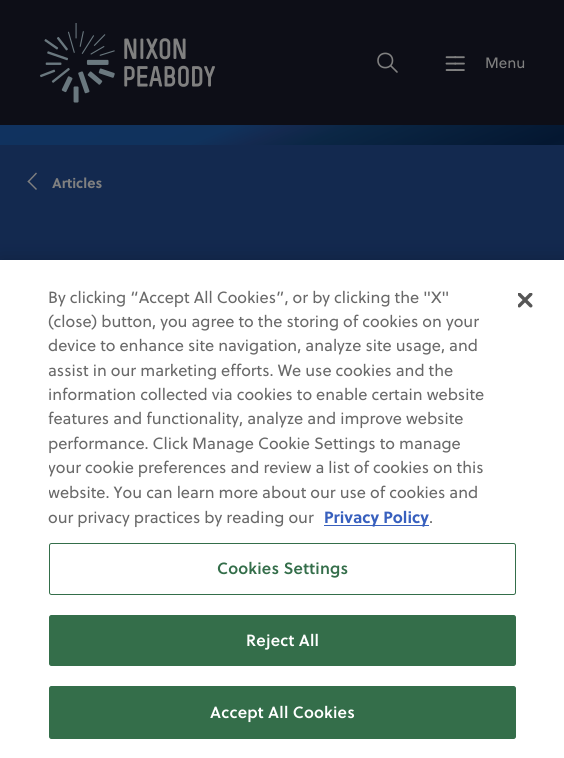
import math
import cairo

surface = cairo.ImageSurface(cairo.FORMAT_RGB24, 564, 758)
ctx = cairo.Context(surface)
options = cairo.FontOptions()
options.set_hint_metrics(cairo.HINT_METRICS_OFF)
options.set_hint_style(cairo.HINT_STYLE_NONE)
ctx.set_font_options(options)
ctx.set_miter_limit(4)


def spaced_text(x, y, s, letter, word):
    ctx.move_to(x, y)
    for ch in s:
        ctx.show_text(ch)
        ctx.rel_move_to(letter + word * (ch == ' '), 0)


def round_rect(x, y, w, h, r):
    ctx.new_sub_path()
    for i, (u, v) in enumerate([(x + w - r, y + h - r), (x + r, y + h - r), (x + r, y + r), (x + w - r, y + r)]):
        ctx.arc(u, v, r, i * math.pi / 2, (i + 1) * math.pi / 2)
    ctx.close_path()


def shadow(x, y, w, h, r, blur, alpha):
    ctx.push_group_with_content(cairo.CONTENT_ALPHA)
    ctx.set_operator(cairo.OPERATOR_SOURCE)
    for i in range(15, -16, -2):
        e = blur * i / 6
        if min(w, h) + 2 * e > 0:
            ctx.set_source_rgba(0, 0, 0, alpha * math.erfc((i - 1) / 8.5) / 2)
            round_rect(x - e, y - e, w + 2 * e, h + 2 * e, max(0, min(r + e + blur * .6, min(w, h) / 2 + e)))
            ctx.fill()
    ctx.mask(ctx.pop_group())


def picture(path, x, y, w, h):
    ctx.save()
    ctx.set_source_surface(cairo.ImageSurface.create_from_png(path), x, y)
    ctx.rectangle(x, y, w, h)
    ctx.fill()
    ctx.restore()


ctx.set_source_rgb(0.078, 0.161, 0.31)
ctx.paint()
ctx.set_source_rgb(0.051, 0.055, 0.09)
ctx.rectangle(0, 0, 564, 125)
ctx.fill()
picture("img1.png", 40, 23, 175, 80)
ctx.new_path()
ctx.move_to(397, 72)
ctx.line_to(390.5, 65.5)
ctx.move_to(392.5, 60.5)
ctx.curve_to(392.5, 70, 378, 70, 378, 60.5)
ctx.curve_to(378, 51, 392.5, 51, 392.5, 60.5)
ctx.close_path()
ctx.set_source_rgb(0.502, 0.502, 0.502)
ctx.set_line_width(1.6)
ctx.set_line_cap(cairo.LINE_CAP_ROUND)
ctx.set_line_join(cairo.LINE_JOIN_ROUND)
ctx.stroke()
picture("img2.png", 445, 56, 20, 15)
ctx.select_font_face("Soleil")
ctx.set_font_size(15)
ctx.move_to(485, 68)
ctx.show_text("Menu")
gradient = cairo.LinearGradient(475, -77, 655, 347)
gradient.add_color_stop_rgba(0, 0.063, 0.196, 0.373, 1)
gradient.add_color_stop_rgba(0.2, 0.063, 0.196, 0.361, 1)
gradient.add_color_stop_rgba(0.25, 0.078, 0.161, 0.31, 1)
gradient.add_color_stop_rgba(0.3, 0.043, 0.153, 0.271, 1)
gradient.add_color_stop_rgba(0.5, 0.016, 0.09, 0.192, 1)
gradient.add_color_stop_rgba(0.7, 0.043, 0.153, 0.271, 1)
gradient.add_color_stop_rgba(0.75, 0.078, 0.161, 0.31, 1)
gradient.add_color_stop_rgba(0.8, 0.063, 0.196, 0.361, 1)
gradient.add_color_stop_rgba(1, 0.063, 0.196, 0.373, 1)
ctx.set_source(gradient)
ctx.rectangle(0, 125, 564, 20)
ctx.fill()
ctx.set_source_rgb(0.502, 0.502, 0.502)
ctx.new_path()
ctx.move_to(27.5, 181.5)
ctx.line_to(36, 172.5)
ctx.line_to(37, 173.5)
ctx.line_to(28.5, 182.5)
ctx.close_path()
ctx.fill()
ctx.new_path()
ctx.move_to(27.5, 181.5)
ctx.line_to(28.5, 180.5)
ctx.line_to(37, 189)
ctx.line_to(36, 190)
ctx.close_path()
ctx.fill()
ctx.select_font_face("Soleil", cairo.FONT_SLANT_NORMAL, cairo.FONT_WEIGHT_BOLD)
ctx.set_font_size(14)
ctx.move_to(52, 188)
ctx.show_text("Articles")
ctx.set_source_rgb(0, 0, 0)
shadow(0, 260, 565, 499, 0, 11, 0.2)
ctx.set_source_rgb(1, 1, 1)
ctx.rectangle(0, 260, 564, 498)
ctx.fill()
ctx.select_font_face("Soleil")
ctx.set_font_size(16.25)
ctx.set_source_rgb(0.412, 0.412, 0.412)
ctx.move_to(48, 303)
ctx.show_text("By clicking “Accept All Cookies”, or by clicking the \"X\"")
ctx.move_to(48, 327)
ctx.show_text("(close) button, you agree to the storing of cookies on your")
ctx.move_to(48, 351)
ctx.show_text("device to enhance site navigation, analyze site usage, and")
ctx.move_to(48, 376)
ctx.show_text("assist in our marketing efforts. We use cookies and the")
ctx.move_to(48, 400)
ctx.show_text("information collected via cookies to enable certain website")
ctx.move_to(48, 424)
ctx.show_text("features and functionality, analyze and improve website")
ctx.move_to(48, 449)
ctx.show_text("performance. Click Manage Cookie Settings to manage")
ctx.save()
ctx.rectangle(49, 285, 442, 245)
ctx.clip()
ctx.move_to(48, 473)
ctx.show_text("your cookie preferences and review a list of cookies on this")
ctx.move_to(48, 498)
ctx.show_text("website. You can learn more about our use of cookies and")
ctx.restore()
ctx.move_to(48, 523)
ctx.show_text("our privacy practices by reading our")
ctx.set_source_rgb(0.22, 0.376, 0.745)
ctx.rectangle(324, 525, 105, 1)
ctx.fill()
ctx.select_font_face("Soleil", cairo.FONT_SLANT_NORMAL, cairo.FONT_WEIGHT_BOLD)
ctx.move_to(324, 523)
ctx.show_text("Privacy Policy")
ctx.select_font_face("Soleil")
ctx.set_source_rgb(0.412, 0.412, 0.412)
ctx.move_to(429, 523)
ctx.show_text(".")
round_rect(49.5, 543.5, 466, 51, 2)
ctx.set_source_rgb(0.204, 0.431, 0.29)
ctx.set_line_width(1)
ctx.set_line_cap(cairo.LINE_CAP_BUTT)
ctx.set_line_join(cairo.LINE_JOIN_MITER)
ctx.stroke()
ctx.select_font_face("Soleil SemiBold")
spaced_text(217, 574, "Cookies Settings", 0.2, 0)
round_rect(49.5, 615.5, 466, 50, 2)
ctx.fill_preserve()
ctx.stroke()
ctx.set_source_rgb(1, 1, 1)
spaced_text(246, 646, "Reject All", 0.2, 0)
ctx.set_source_rgb(0.204, 0.431, 0.29)
round_rect(49.5, 686.5, 466, 52, 2)
ctx.fill_preserve()
ctx.stroke()
ctx.set_source_rgb(1, 1, 1)
spaced_text(210, 718, "Accept All Cookies", 0.2, 0)
picture("img3.png", 518, 293, 15, 15)
surface.write_to_png("page.png")
